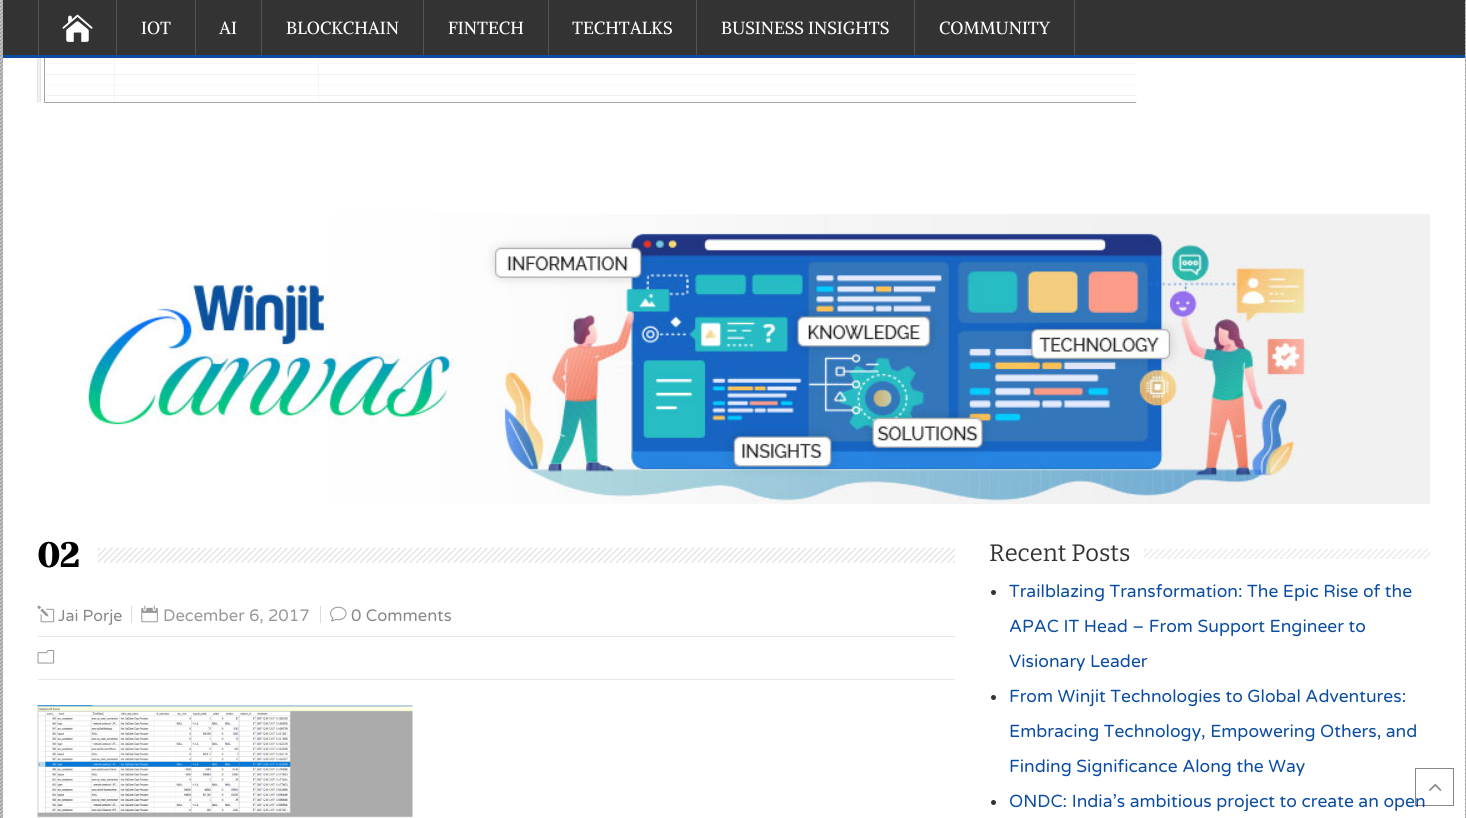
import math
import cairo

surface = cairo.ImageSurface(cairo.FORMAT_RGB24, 1466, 818)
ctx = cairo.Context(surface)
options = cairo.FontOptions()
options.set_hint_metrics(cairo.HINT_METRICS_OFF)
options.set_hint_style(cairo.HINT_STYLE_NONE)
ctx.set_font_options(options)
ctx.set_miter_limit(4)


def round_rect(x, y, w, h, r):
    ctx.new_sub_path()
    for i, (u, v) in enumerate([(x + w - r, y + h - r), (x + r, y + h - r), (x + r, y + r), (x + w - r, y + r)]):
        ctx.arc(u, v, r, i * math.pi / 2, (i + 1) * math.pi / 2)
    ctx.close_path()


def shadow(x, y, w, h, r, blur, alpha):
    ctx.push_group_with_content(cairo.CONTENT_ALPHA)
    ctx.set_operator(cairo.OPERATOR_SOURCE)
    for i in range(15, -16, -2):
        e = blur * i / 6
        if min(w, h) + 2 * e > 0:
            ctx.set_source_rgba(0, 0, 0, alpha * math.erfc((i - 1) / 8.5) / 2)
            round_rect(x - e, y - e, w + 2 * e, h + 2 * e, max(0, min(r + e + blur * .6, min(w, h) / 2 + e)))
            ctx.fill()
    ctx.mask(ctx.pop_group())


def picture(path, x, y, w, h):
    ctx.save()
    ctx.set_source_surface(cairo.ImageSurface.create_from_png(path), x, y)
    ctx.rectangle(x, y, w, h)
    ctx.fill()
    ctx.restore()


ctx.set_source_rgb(0.871, 0.871, 0.871)
ctx.paint()
picture("img1.png", 0, 0, 1466, 818)
ctx.set_source_rgb(0.667, 0.667, 0.667)
shadow(3, -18, 1462, 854, 0, 6, 1)
ctx.set_source_rgb(1, 1, 1)
ctx.rectangle(3, 58, 1462, 760)
ctx.fill()
ctx.set_source_rgb(0.2, 0.2, 0.2)
ctx.rectangle(3, 0, 1462, 55)
ctx.fill()
ctx.set_source_rgb(0.047, 0.302, 0.635)
ctx.rectangle(3, 55, 1462, 3)
ctx.fill()
ctx.set_source_rgb(0.325, 0.325, 0.325)
ctx.rectangle(116, 0, 1, 55)
ctx.fill()
ctx.rectangle(38, 0, 1, 55)
ctx.fill()
picture("img2.png", 62, 14, 31, 28)
ctx.rectangle(195, 0, 1, 55)
ctx.fill()
ctx.select_font_face("Alike")
ctx.set_font_size(17.5)
ctx.set_source_rgb(1, 1, 1)
ctx.move_to(141, 34)
ctx.show_text("IOT")
ctx.set_source_rgb(0.325, 0.325, 0.325)
ctx.rectangle(261, 0, 1, 55)
ctx.fill()
ctx.set_source_rgb(1, 1, 1)
ctx.move_to(219, 34)
ctx.show_text("AI")
ctx.set_source_rgb(0.325, 0.325, 0.325)
ctx.rectangle(423, 0, 1, 55)
ctx.fill()
ctx.set_source_rgb(1, 1, 1)
ctx.move_to(286, 34)
ctx.show_text("BLOCKCHAIN")
ctx.set_source_rgb(0.325, 0.325, 0.325)
ctx.rectangle(548, 0, 1, 55)
ctx.fill()
ctx.set_source_rgb(1, 1, 1)
ctx.move_to(448, 34)
ctx.show_text("FINTECH")
ctx.set_source_rgb(0.325, 0.325, 0.325)
ctx.rectangle(696, 0, 1, 55)
ctx.fill()
ctx.set_source_rgb(1, 1, 1)
ctx.move_to(572, 34)
ctx.show_text("TECHTALKS")
ctx.set_source_rgb(0.325, 0.325, 0.325)
ctx.rectangle(914, 0, 1, 55)
ctx.fill()
ctx.set_source_rgb(1, 1, 1)
ctx.move_to(721, 34)
ctx.show_text("BUSINESS INSIGHTS")
ctx.set_source_rgb(0.325, 0.325, 0.325)
ctx.rectangle(1074, 0, 1, 55)
ctx.fill()
ctx.set_source_rgb(1, 1, 1)
ctx.move_to(939, 34)
ctx.show_text("COMMUNITY")
picture("img3.png", 37, 58, 1100, 45)
picture("img4.png", 87, 214, 1343, 290)
picture("img5.png", 37, 547, 918, 16)
ctx.rectangle(38, 547, 60, 16)
ctx.fill()
ctx.select_font_face("Yeseva One", cairo.FONT_SLANT_NORMAL, cairo.FONT_WEIGHT_BOLD)
ctx.set_font_size(34)
ctx.set_source_rgb(0, 0, 0)
ctx.move_to(37, 567)
ctx.show_text("02")
picture("img6.png", 37, 605, 18, 18)
ctx.select_font_face("Varela Round")
ctx.set_font_size(16)
ctx.set_source_rgb(0.533, 0.533, 0.533)
ctx.move_to(58, 621)
ctx.show_text("Jai Porje")
picture("img7.png", 141, 605, 17, 18)
ctx.set_font_size(16.6)
ctx.set_source_rgb(0.6, 0.6, 0.6)
ctx.move_to(163, 621)
ctx.show_text("December 6, 2017")
ctx.set_source_rgb(0.859, 0.859, 0.859)
ctx.rectangle(131, 606, 1, 17)
ctx.fill()
picture("img8.png", 330, 606, 17, 16)
ctx.set_source_rgb(0.533, 0.533, 0.533)
ctx.move_to(351, 621)
ctx.show_text("0 Comments")
ctx.set_source_rgb(0.859, 0.859, 0.859)
ctx.rectangle(320, 606, 1, 17)
ctx.fill()
ctx.set_source_rgb(0.91, 0.91, 0.91)
ctx.rectangle(38, 636, 917, 1)
ctx.fill()
ctx.rectangle(38, 679, 917, 1)
ctx.fill()
picture("img9.png", 37, 650, 18, 14)
picture("img10.png", 37, 705, 376, 113)
picture("img11.png", 1144, 549, 286, 10)
ctx.select_font_face("Bitter Thin")
ctx.set_font_size(23.75)
ctx.set_source_rgb(0.2, 0.2, 0.2)
ctx.move_to(989, 561)
ctx.show_text("Recent Posts")
ctx.new_path()
ctx.arc(993.5, 592.5, 2.5, 0, 2 * math.pi)
ctx.fill()
ctx.select_font_face("Varela Round")
ctx.set_font_size(17.5)
ctx.set_source_rgb(0.047, 0.302, 0.635)
ctx.move_to(1009, 597)
ctx.show_text("Trailblazing Transformation: The Epic Rise of the")
ctx.move_to(1009, 632)
ctx.show_text("APAC IT Head – From Support Engineer to")
ctx.move_to(1009, 667)
ctx.show_text("Visionary Leader")
ctx.set_source_rgb(0.2, 0.2, 0.2)
ctx.new_path()
ctx.arc(993.5, 697.5, 2.5, 0, 2 * math.pi)
ctx.fill()
ctx.set_source_rgb(0.047, 0.302, 0.635)
ctx.move_to(1009, 702)
ctx.show_text("From Winjit Technologies to Global Adventures:")
ctx.move_to(1009, 737)
ctx.show_text("Embracing Technology, Empowering Others, and")
ctx.move_to(1009, 772)
ctx.show_text("Finding Significance Along the Way")
ctx.set_source_rgb(0.2, 0.2, 0.2)
ctx.new_path()
ctx.arc(993.5, 802.5, 2.5, 0, 2 * math.pi)
ctx.fill()
ctx.set_source_rgb(0.047, 0.302, 0.635)
ctx.move_to(1009, 807)
ctx.show_text("ONDC: India’s ambitious project to create an open")
ctx.rectangle(1415.5, 768.5, 38, 37)
ctx.set_source_rgba(0.067, 0.067, 0.067, 0.5)
ctx.set_line_width(1)
ctx.stroke()
picture("img12.png", 1429, 784, 13, 7)
surface.write_to_png("page.png")
